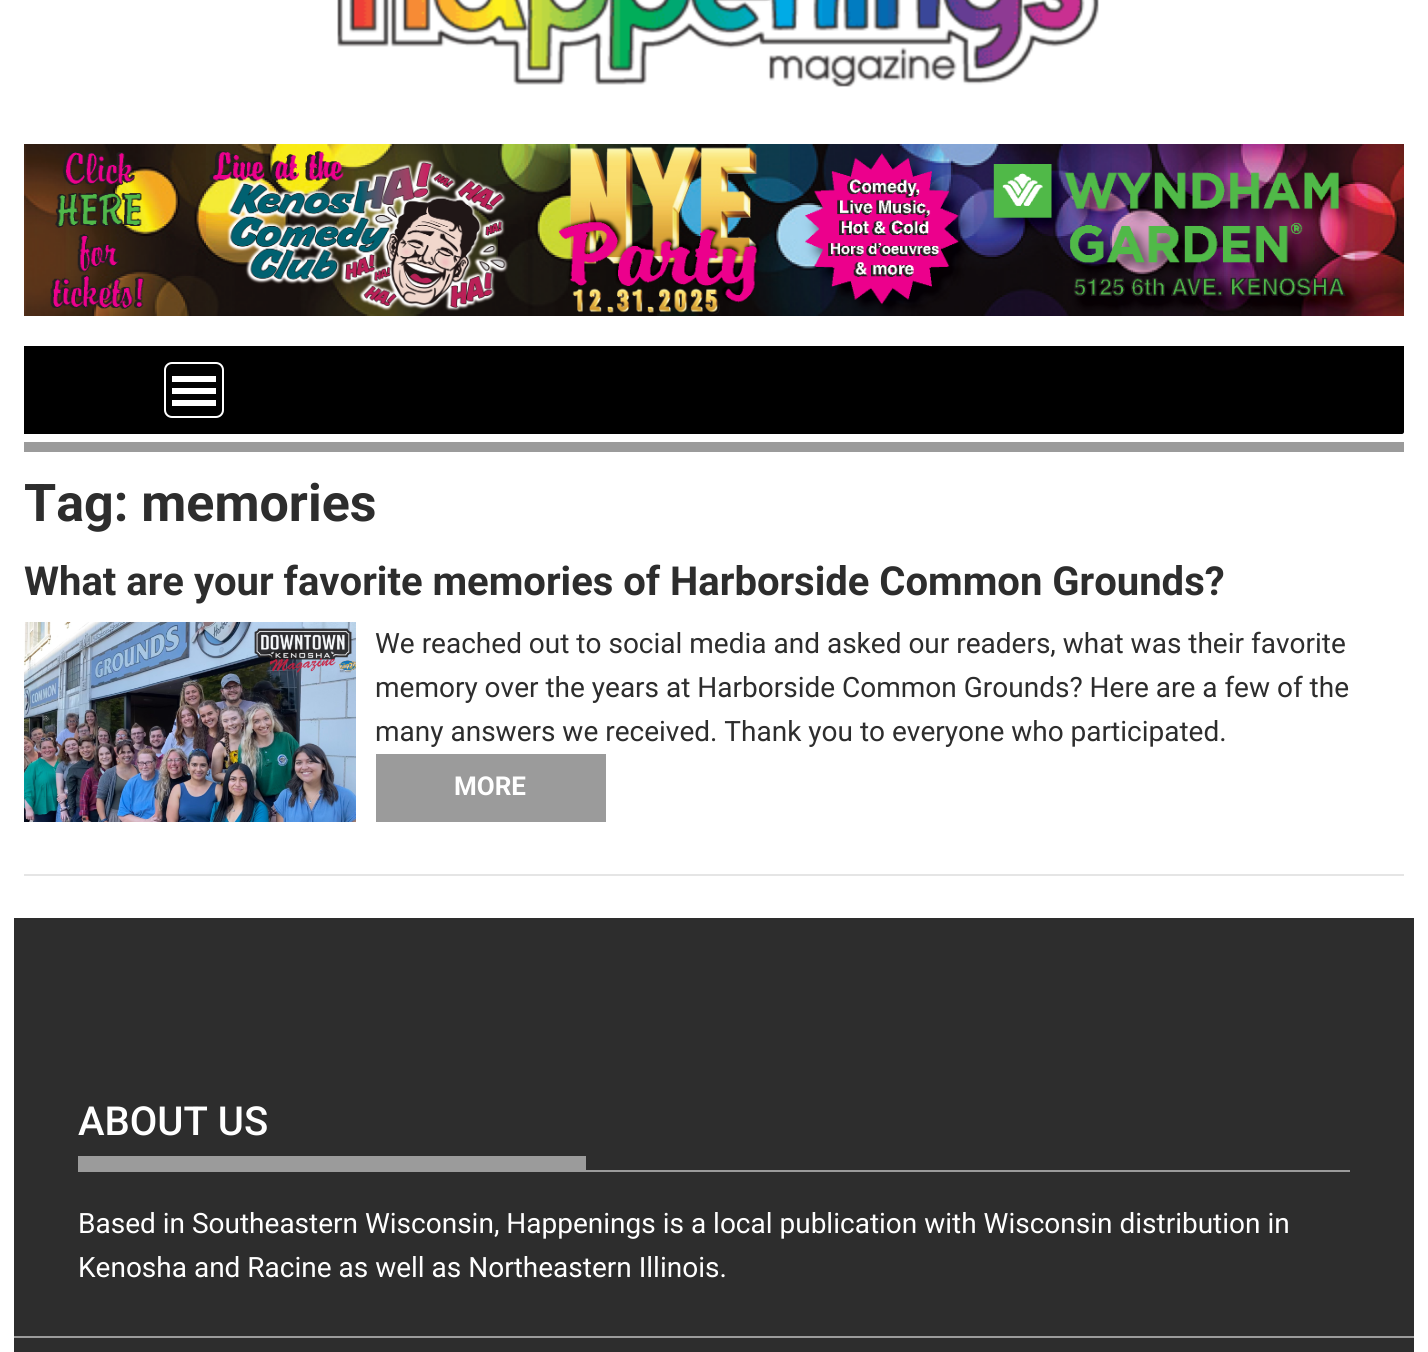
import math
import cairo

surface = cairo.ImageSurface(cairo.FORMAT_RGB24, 1428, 1352)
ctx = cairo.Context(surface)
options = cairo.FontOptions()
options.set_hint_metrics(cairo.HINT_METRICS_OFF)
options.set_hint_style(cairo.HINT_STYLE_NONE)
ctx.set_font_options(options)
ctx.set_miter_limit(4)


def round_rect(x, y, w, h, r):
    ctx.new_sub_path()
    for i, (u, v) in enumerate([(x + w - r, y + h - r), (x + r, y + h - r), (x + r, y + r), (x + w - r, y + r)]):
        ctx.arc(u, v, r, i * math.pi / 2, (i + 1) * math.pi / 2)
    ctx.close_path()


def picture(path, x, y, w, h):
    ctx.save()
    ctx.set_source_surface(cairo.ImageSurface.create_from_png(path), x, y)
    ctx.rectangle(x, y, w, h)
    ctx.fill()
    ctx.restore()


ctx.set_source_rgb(1, 1, 1)
ctx.paint()
picture("img1.png", 337, 0, 762, 87)
picture("img2.png", 24, 144, 1380, 172)
ctx.set_source_rgb(0, 0, 0)
ctx.rectangle(24, 346, 1380, 88)
ctx.fill()
ctx.save()
ctx.rectangle(24, 346, 1380, 96)
ctx.clip()
ctx.set_source_rgb(1, 1, 1)
ctx.set_fill_rule(cairo.FILL_RULE_EVEN_ODD)
ctx.new_path()
ctx.move_to(-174, 148)
ctx.line_to(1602, 148)
ctx.line_to(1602, 640)
ctx.line_to(-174, 640)
ctx.close_path()
ctx.move_to(22, 334)
ctx.line_to(1402, 334)
ctx.curve_to(1403, 334, 1404, 335, 1404, 336)
ctx.line_to(1404, 432)
ctx.curve_to(1404, 433, 1403, 434, 1402, 434)
ctx.line_to(22, 434)
ctx.curve_to(21, 434, 20, 433, 20, 432)
ctx.line_to(20, 336)
ctx.curve_to(20, 335, 21, 334, 22, 334)
ctx.close_path()
ctx.fill()
ctx.restore()
ctx.set_source_rgb(0.608, 0.608, 0.608)
ctx.rectangle(24, 442, 1380, 10)
ctx.fill()
round_rect(165, 363, 58, 54, 7)
ctx.set_source_rgb(1, 1, 1)
ctx.stroke()
ctx.rectangle(172, 400, 44, 6)
ctx.fill()
ctx.rectangle(172, 388, 44, 6)
ctx.fill()
ctx.rectangle(172, 376, 44, 6)
ctx.fill()
ctx.select_font_face("Roboto", cairo.FONT_SLANT_NORMAL, cairo.FONT_WEIGHT_BOLD)
ctx.set_font_size(52)
ctx.set_source_rgb(0.176, 0.176, 0.176)
ctx.move_to(24, 521)
ctx.show_text("Tag: memories")
ctx.set_source_rgb(0.898, 0.898, 0.898)
ctx.rectangle(24, 874, 1380, 2)
ctx.fill()
ctx.set_font_size(40)
ctx.set_source_rgb(0.176, 0.176, 0.176)
ctx.move_to(24, 595)
ctx.show_text("What are your favorite memories of Harborside Common Grounds?")
picture("img3.png", 24, 622, 332, 200)
ctx.select_font_face("Roboto")
ctx.set_font_size(28)
ctx.move_to(375, 653)
ctx.show_text("We reached out to social media and asked our readers, what was their favorite")
ctx.move_to(375, 697)
ctx.show_text("memory over the years at Harborside Common Grounds? Here are a few of the")
ctx.move_to(375, 741)
ctx.show_text("many answers we received. Thank you to everyone who participated.")
ctx.set_source_rgb(0.608, 0.608, 0.608)
ctx.rectangle(376, 754, 230, 68)
ctx.fill()
ctx.select_font_face("Roboto", cairo.FONT_SLANT_NORMAL, cairo.FONT_WEIGHT_BOLD)
ctx.set_font_size(26)
ctx.set_source_rgb(1, 1, 1)
ctx.move_to(454, 795)
ctx.show_text("MORE")
ctx.set_source_rgb(0.176, 0.176, 0.176)
ctx.rectangle(14, 918, 1400, 434)
ctx.fill()
ctx.set_source_rgb(0.608, 0.608, 0.608)
ctx.rectangle(78, 1170, 1272, 2)
ctx.fill()
ctx.select_font_face("Roboto Medium")
ctx.set_font_size(40)
ctx.set_source_rgb(1, 1, 1)
ctx.move_to(78, 1135)
ctx.show_text("ABOUT US")
ctx.set_source_rgb(0.608, 0.608, 0.608)
ctx.rectangle(78, 1156, 508, 14)
ctx.fill()
ctx.select_font_face("Roboto")
ctx.set_font_size(28)
ctx.set_source_rgb(1, 1, 1)
ctx.move_to(78, 1233)
ctx.show_text("Based in Southeastern Wisconsin, Happenings is a local publication with Wisconsin distribution in")
ctx.move_to(78, 1277)
ctx.show_text("Kenosha and Racine as well as Northeastern Illinois.")
ctx.set_source_rgb(0.608, 0.608, 0.608)
ctx.rectangle(14, 1336, 1400, 2)
ctx.fill()
surface.write_to_png("page.png")
